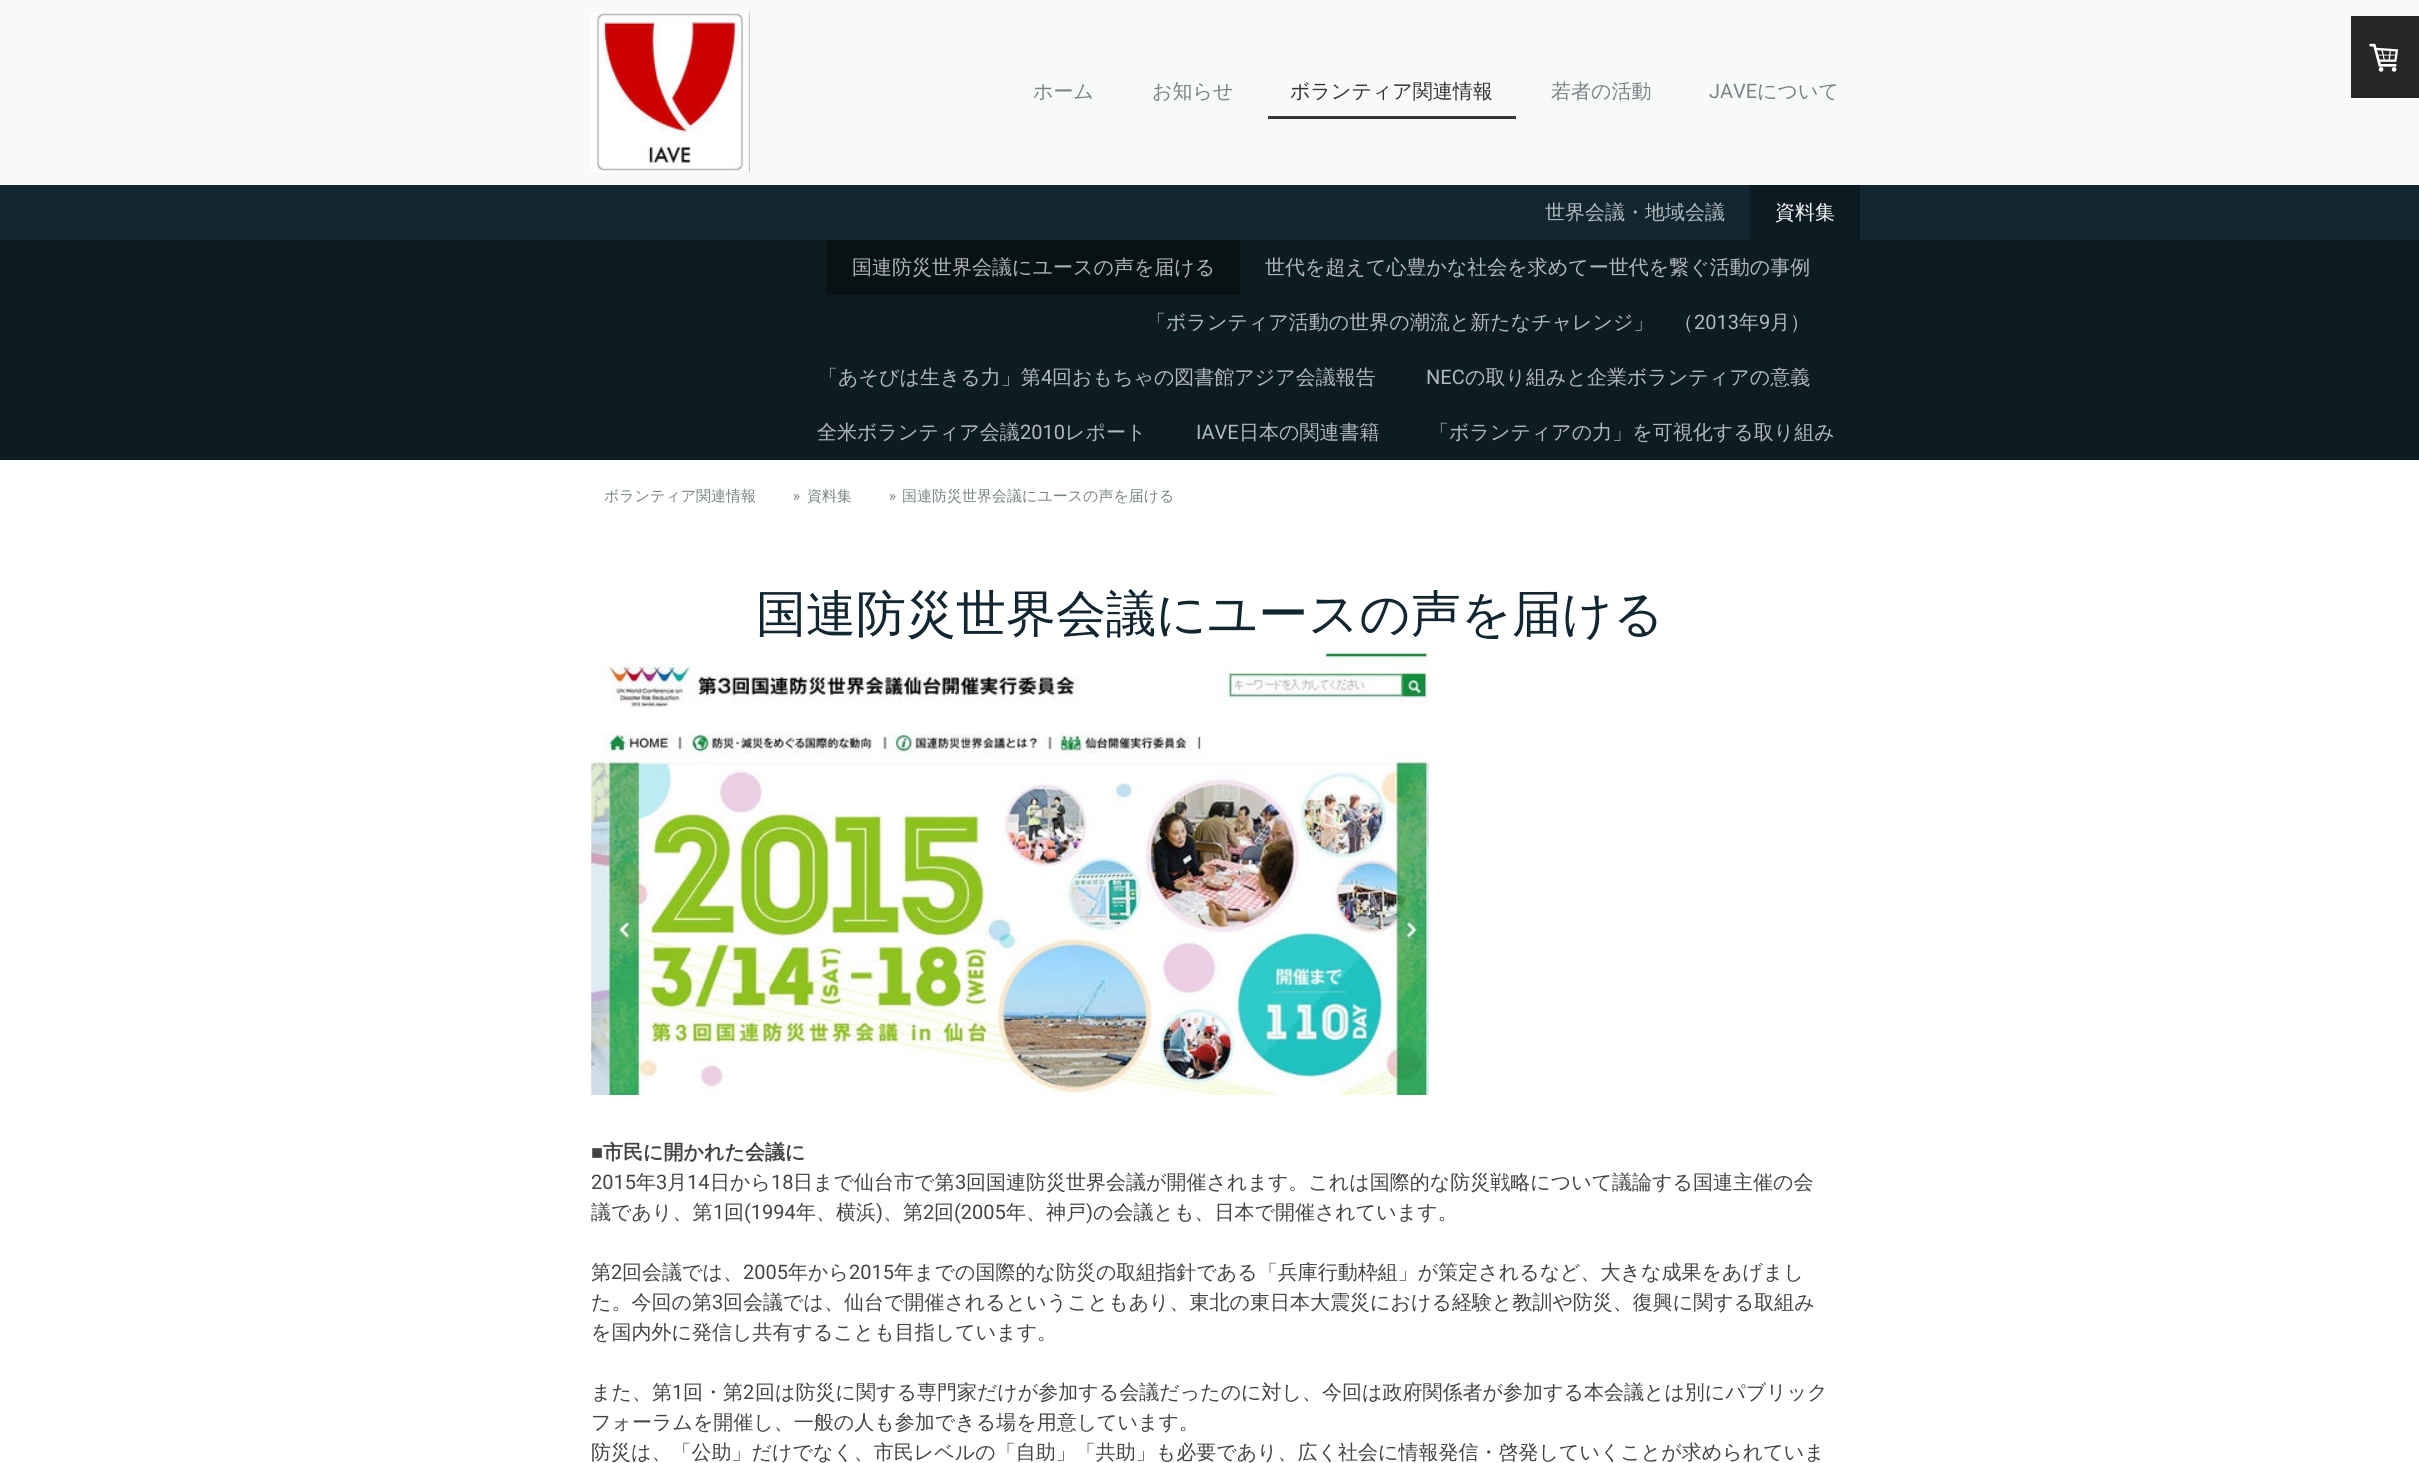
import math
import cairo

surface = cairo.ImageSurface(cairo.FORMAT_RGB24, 2419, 1463)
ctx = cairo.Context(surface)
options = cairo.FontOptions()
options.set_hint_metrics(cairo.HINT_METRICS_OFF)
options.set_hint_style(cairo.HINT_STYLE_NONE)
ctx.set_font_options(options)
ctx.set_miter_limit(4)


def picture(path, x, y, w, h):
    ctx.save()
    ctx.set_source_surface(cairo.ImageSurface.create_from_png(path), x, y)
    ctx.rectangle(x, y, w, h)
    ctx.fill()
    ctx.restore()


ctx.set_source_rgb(1, 1, 1)
ctx.paint()
ctx.set_source_rgb(0.969, 0.973, 0.973)
ctx.rectangle(0, 0, 2419, 185)
ctx.fill()
picture("img1.png", 590, 12, 160, 161)
ctx.select_font_face("WenQuanYi Zen Hei Medium")
ctx.set_font_size(20)
ctx.set_source_rgb(0.475, 0.518, 0.525)
ctx.move_to(1033, 98)
ctx.show_text("ホーム")
ctx.move_to(1152, 98)
ctx.show_text("お知らせ")
ctx.set_source_rgb(0.2, 0.2, 0.2)
ctx.rectangle(1268, 116, 248, 3)
ctx.fill()
ctx.move_to(1290, 98)
ctx.show_text("ボランティア関連情報")
ctx.set_source_rgb(0.475, 0.518, 0.525)
ctx.move_to(1551, 98)
ctx.show_text("若者の活動")
ctx.select_font_face("Roboto")
ctx.move_to(1709, 98)
ctx.show_text("JAVE")
ctx.select_font_face("WenQuanYi Zen Hei Medium")
ctx.move_to(1757, 98)
ctx.show_text("について")
ctx.set_source_rgb(0.153, 0.153, 0.153)
ctx.rectangle(2351, 16, 68, 82)
ctx.fill()
picture("img2.png", 2369, 43, 30, 29)
ctx.set_source_rgb(0.067, 0.149, 0.192)
ctx.rectangle(0, 185, 2419, 55)
ctx.fill()
ctx.set_source_rgb(0.698, 0.725, 0.737)
ctx.move_to(1545, 219)
ctx.show_text("世界会議・地域会議")
ctx.set_source_rgb(0.047, 0.102, 0.129)
ctx.rectangle(1750, 185, 110, 55)
ctx.fill()
ctx.set_source_rgb(0.969, 0.973, 0.973)
ctx.move_to(1775, 219)
ctx.show_text("資料集")
ctx.set_source_rgb(0.051, 0.11, 0.137)
ctx.rectangle(0, 240, 2419, 220)
ctx.fill()
ctx.set_source_rgb(0.035, 0.071, 0.082)
ctx.rectangle(826, 240, 414, 55)
ctx.fill()
ctx.set_source_rgb(0.69, 0.702, 0.706)
ctx.move_to(852, 274)
ctx.show_text("国連防災世界会議にユースの声を届ける")
ctx.set_source_rgb(0.698, 0.725, 0.737)
ctx.move_to(1265, 274)
ctx.show_text("世代を超えて心豊かな社会を求めてー世代を繋ぐ活動の事例")
ctx.move_to(1146, 329)
ctx.show_text("「ボランティア活動の世界の潮流と新たなチャレンジ」　（")
ctx.select_font_face("Roboto")
ctx.move_to(1694, 329)
ctx.show_text("2013")
ctx.select_font_face("WenQuanYi Zen Hei Medium")
ctx.move_to(1739, 329)
ctx.show_text("年")
ctx.select_font_face("Roboto")
ctx.move_to(1759, 329)
ctx.show_text("9")
ctx.select_font_face("WenQuanYi Zen Hei Medium")
ctx.move_to(1770, 329)
ctx.show_text("月）")
ctx.move_to(818, 384)
ctx.show_text("「あそびは生きる力」第")
ctx.select_font_face("Roboto")
ctx.move_to(1041, 384)
ctx.show_text("4")
ctx.select_font_face("WenQuanYi Zen Hei Medium")
ctx.move_to(1052, 384)
ctx.show_text("回おもちゃの図書館アジア会議報告")
ctx.select_font_face("Roboto")
ctx.move_to(1426, 384)
ctx.show_text("NEC")
ctx.select_font_face("WenQuanYi Zen Hei Medium")
ctx.move_to(1465, 384)
ctx.show_text("の取り組みと企業ボランティアの意義")
ctx.move_to(817, 439)
ctx.show_text("全米ボランティア会議")
ctx.select_font_face("Roboto")
ctx.move_to(1020, 439)
ctx.show_text("2010")
ctx.select_font_face("WenQuanYi Zen Hei Medium")
ctx.move_to(1065, 439)
ctx.show_text("レポート")
ctx.select_font_face("Roboto")
ctx.move_to(1196, 439)
ctx.show_text("IAVE")
ctx.select_font_face("WenQuanYi Zen Hei Medium")
ctx.move_to(1239, 439)
ctx.show_text("日本の関連書籍")
ctx.move_to(1429, 439)
ctx.show_text("「ボランティアの力」を可視化する取り組み")
ctx.set_font_size(15)
ctx.set_source_rgb(0.475, 0.518, 0.525)
ctx.move_to(604, 501)
ctx.show_text("ボランティア関連情報")
ctx.select_font_face("Roboto")
ctx.move_to(793, 501)
ctx.show_text("»")
ctx.select_font_face("WenQuanYi Zen Hei Medium")
ctx.move_to(807, 501)
ctx.show_text("資料集")
ctx.select_font_face("Roboto")
ctx.move_to(889, 501)
ctx.show_text("»")
ctx.select_font_face("WenQuanYi Zen Hei Medium")
ctx.move_to(902, 501)
ctx.show_text("国連防災世界会議にユースの声を届ける")
ctx.set_font_size(50)
ctx.set_source_rgb(0.067, 0.149, 0.192)
ctx.move_to(756, 631)
ctx.show_text("国連防災世界会議にユースの声を届ける")
picture("img3.png", 591, 653, 838, 442)
ctx.select_font_face("Liberation Sans", cairo.FONT_SLANT_NORMAL, cairo.FONT_WEIGHT_BOLD)
ctx.set_font_size(20)
ctx.set_source_rgb(0.267, 0.267, 0.267)
ctx.move_to(591, 1159)
ctx.show_text("■")
ctx.select_font_face("WenQuanYi Zen Hei", cairo.FONT_SLANT_NORMAL, cairo.FONT_WEIGHT_BOLD)
ctx.move_to(603, 1159)
ctx.show_text("市民に開かれた会議に")
ctx.select_font_face("Roboto")
ctx.move_to(591, 1189)
ctx.show_text("2015")
ctx.select_font_face("WenQuanYi Zen Hei Medium")
ctx.move_to(636, 1189)
ctx.show_text("年")
ctx.select_font_face("Roboto")
ctx.move_to(656, 1189)
ctx.show_text("3")
ctx.select_font_face("WenQuanYi Zen Hei Medium")
ctx.move_to(667, 1189)
ctx.show_text("月")
ctx.select_font_face("Roboto")
ctx.move_to(687, 1189)
ctx.show_text("14")
ctx.select_font_face("WenQuanYi Zen Hei Medium")
ctx.move_to(710, 1189)
ctx.show_text("日から")
ctx.select_font_face("Roboto")
ctx.move_to(771, 1189)
ctx.show_text("18")
ctx.select_font_face("WenQuanYi Zen Hei Medium")
ctx.move_to(793, 1189)
ctx.show_text("日まで仙台市で第")
ctx.select_font_face("Roboto")
ctx.move_to(955, 1189)
ctx.show_text("3")
ctx.select_font_face("WenQuanYi Zen Hei Medium")
ctx.move_to(966, 1189)
ctx.show_text("回国連防災世界会議が開催されます。これは国際的な防災戦略について議論する国連主催の会")
ctx.move_to(591, 1219)
ctx.show_text("議であり、第")
ctx.select_font_face("Roboto")
ctx.move_to(713, 1219)
ctx.show_text("1")
ctx.select_font_face("WenQuanYi Zen Hei Medium")
ctx.move_to(724, 1219)
ctx.show_text("回")
ctx.select_font_face("Roboto")
ctx.move_to(744, 1219)
ctx.show_text("(1994")
ctx.select_font_face("WenQuanYi Zen Hei Medium")
ctx.move_to(796, 1219)
ctx.show_text("年、横浜")
ctx.select_font_face("Roboto")
ctx.move_to(876, 1219)
ctx.show_text(")")
ctx.select_font_face("WenQuanYi Zen Hei Medium")
ctx.move_to(883, 1219)
ctx.show_text("、第")
ctx.select_font_face("Roboto")
ctx.move_to(923, 1219)
ctx.show_text("2")
ctx.select_font_face("WenQuanYi Zen Hei Medium")
ctx.move_to(934, 1219)
ctx.show_text("回")
ctx.select_font_face("Roboto")
ctx.move_to(954, 1219)
ctx.show_text("(2005")
ctx.select_font_face("WenQuanYi Zen Hei Medium")
ctx.move_to(1006, 1219)
ctx.show_text("年、神戸")
ctx.select_font_face("Roboto")
ctx.move_to(1086, 1219)
ctx.show_text(")")
ctx.select_font_face("WenQuanYi Zen Hei Medium")
ctx.move_to(1093, 1219)
ctx.show_text("の会議とも、日本で開催されています。")
ctx.move_to(591, 1279)
ctx.show_text("第")
ctx.select_font_face("Roboto")
ctx.move_to(611, 1279)
ctx.show_text("2")
ctx.select_font_face("WenQuanYi Zen Hei Medium")
ctx.move_to(622, 1279)
ctx.show_text("回会議では、")
ctx.select_font_face("Roboto")
ctx.move_to(743, 1279)
ctx.show_text("2005")
ctx.select_font_face("WenQuanYi Zen Hei Medium")
ctx.move_to(788, 1279)
ctx.show_text("年から")
ctx.select_font_face("Roboto")
ctx.move_to(849, 1279)
ctx.show_text("2015")
ctx.select_font_face("WenQuanYi Zen Hei Medium")
ctx.move_to(894, 1279)
ctx.show_text("年までの国際的な防災の取組指針である「兵庫行動枠組」が策定されるなど、大きな成果をあげまし")
ctx.move_to(591, 1309)
ctx.show_text("た。今回の第")
ctx.select_font_face("Roboto")
ctx.move_to(712, 1309)
ctx.show_text("3")
ctx.select_font_face("WenQuanYi Zen Hei Medium")
ctx.move_to(723, 1309)
ctx.show_text("回会議では、仙台で開催されるということもあり、東北の東日本大震災における経験と教訓や防災、復興に関する取組み")
ctx.move_to(591, 1339)
ctx.show_text("を国内外に発信し共有することも目指しています。")
ctx.move_to(591, 1399)
ctx.show_text("また、第")
ctx.select_font_face("Roboto")
ctx.move_to(672, 1399)
ctx.show_text("1")
ctx.select_font_face("WenQuanYi Zen Hei Medium")
ctx.move_to(683, 1399)
ctx.show_text("回・第")
ctx.select_font_face("Roboto")
ctx.move_to(743, 1399)
ctx.show_text("2")
ctx.select_font_face("WenQuanYi Zen Hei Medium")
ctx.move_to(755, 1399)
ctx.show_text("回は防災に関する専門家だけが参加する会議だったのに対し、今回は政府関係者が参加する本会議とは別にパブリック")
ctx.move_to(591, 1429)
ctx.show_text("フォーラムを開催し、一般の人も参加できる場を用意しています。")
ctx.move_to(591, 1459)
ctx.show_text("防災は、「公助」だけでなく、市民レベルの「自助」「共助」も必要であり、広く社会に情報発信・啓発していくことが求められていま")
surface.write_to_png("page.png")
